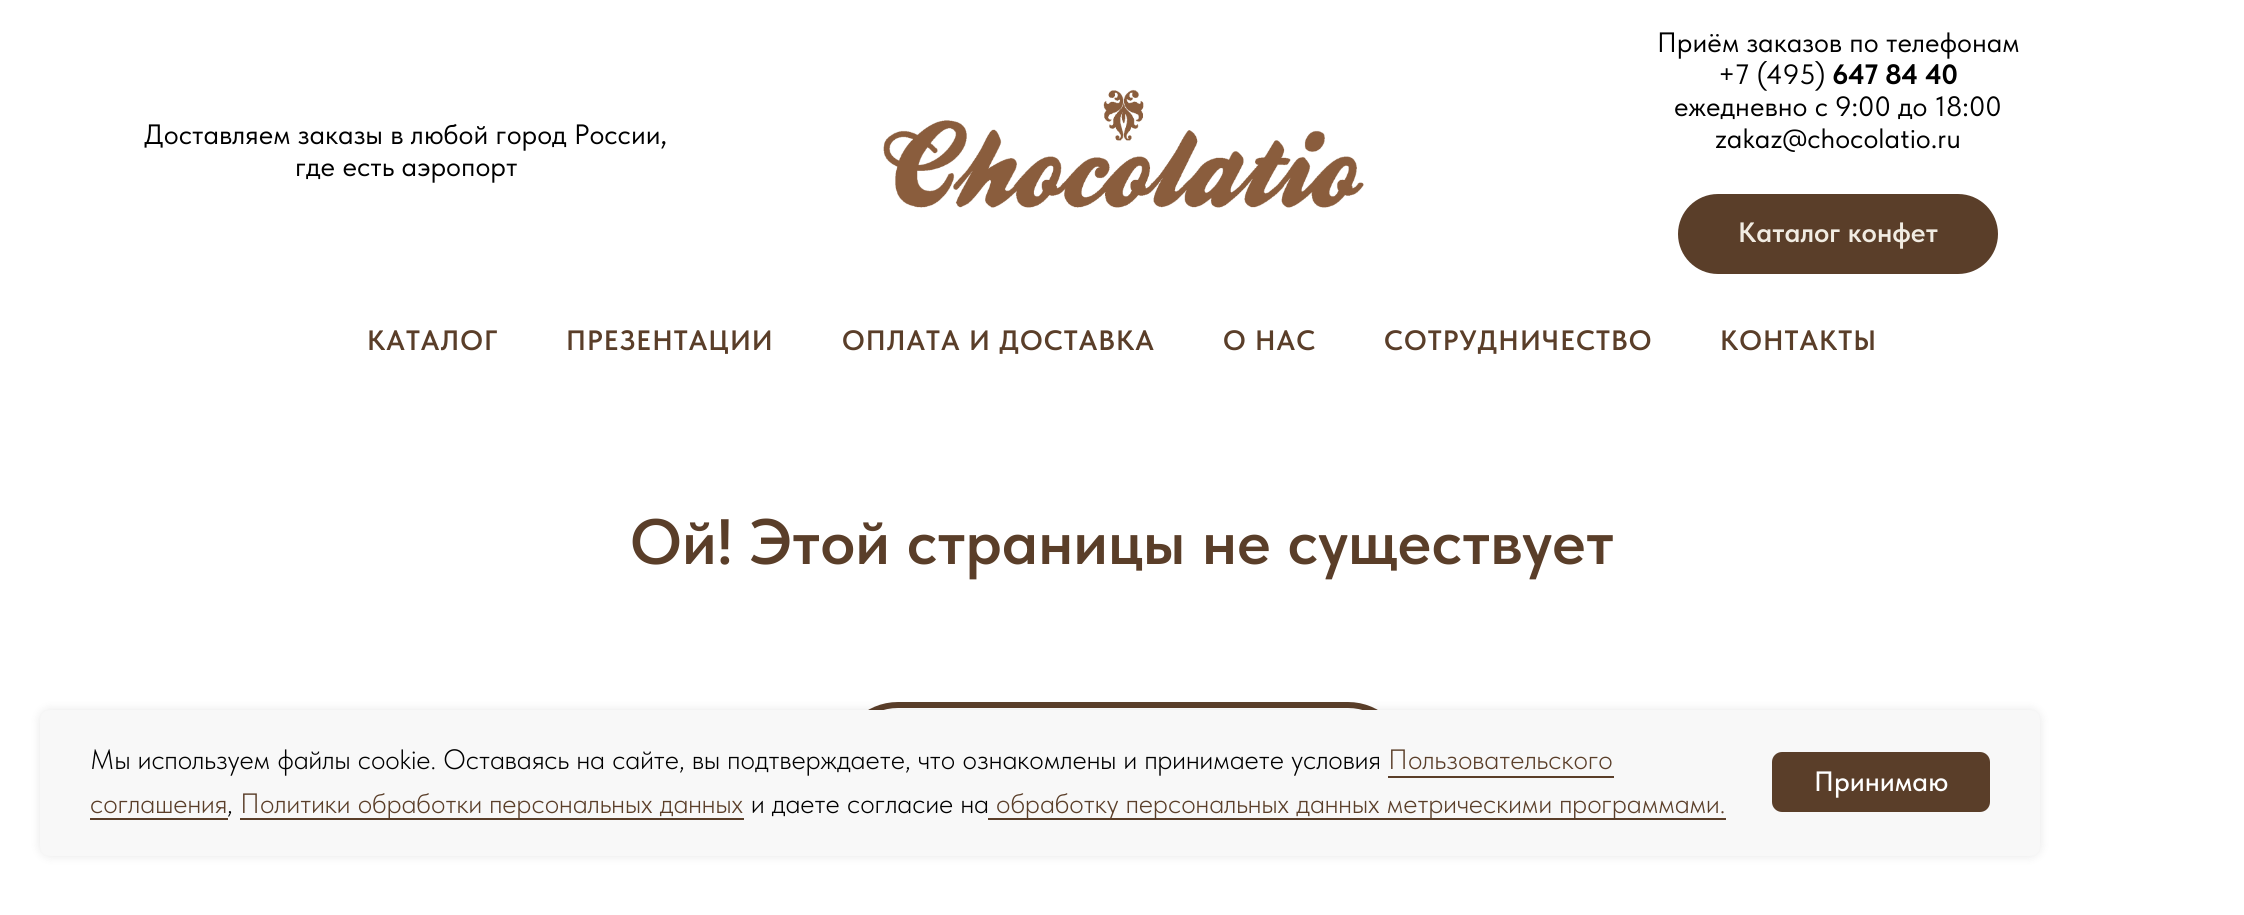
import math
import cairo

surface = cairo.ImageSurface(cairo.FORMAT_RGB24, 2244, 915)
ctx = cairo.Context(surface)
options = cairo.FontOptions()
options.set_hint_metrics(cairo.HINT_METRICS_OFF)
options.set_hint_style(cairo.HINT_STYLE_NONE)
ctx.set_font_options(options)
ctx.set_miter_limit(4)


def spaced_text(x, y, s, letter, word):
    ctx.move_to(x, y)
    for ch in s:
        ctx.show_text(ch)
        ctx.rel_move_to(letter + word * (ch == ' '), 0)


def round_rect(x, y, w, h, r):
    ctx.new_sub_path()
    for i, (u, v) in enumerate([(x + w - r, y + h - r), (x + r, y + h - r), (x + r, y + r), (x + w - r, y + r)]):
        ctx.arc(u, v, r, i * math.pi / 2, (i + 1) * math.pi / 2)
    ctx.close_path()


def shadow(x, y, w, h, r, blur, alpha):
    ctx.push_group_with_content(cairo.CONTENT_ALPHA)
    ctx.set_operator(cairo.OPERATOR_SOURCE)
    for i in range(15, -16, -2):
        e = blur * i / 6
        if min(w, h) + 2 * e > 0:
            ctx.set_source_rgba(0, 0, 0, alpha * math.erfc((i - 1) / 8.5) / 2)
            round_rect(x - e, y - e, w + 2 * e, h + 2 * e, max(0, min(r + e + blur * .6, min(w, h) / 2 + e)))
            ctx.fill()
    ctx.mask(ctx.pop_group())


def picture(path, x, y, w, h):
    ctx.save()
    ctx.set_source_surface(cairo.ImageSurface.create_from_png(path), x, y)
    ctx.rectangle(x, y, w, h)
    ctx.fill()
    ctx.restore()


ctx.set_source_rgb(1, 1, 1)
ctx.paint()
ctx.select_font_face("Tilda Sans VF")
ctx.set_font_size(28)
ctx.set_source_rgb(0, 0, 0)
ctx.move_to(144, 144)
ctx.show_text("Доставляем заказы в любой город России,")
ctx.move_to(295, 176)
ctx.show_text("где есть аэропорт")
ctx.move_to(1657, 52)
ctx.show_text("Приём заказов по телефонам")
ctx.move_to(1718, 84)
ctx.show_text("+7 (495)")
ctx.select_font_face("Tilda Sans VF", cairo.FONT_SLANT_NORMAL, cairo.FONT_WEIGHT_BOLD)
ctx.move_to(1832, 84)
ctx.show_text("647 84 40")
ctx.select_font_face("Tilda Sans VF")
ctx.move_to(1674, 116)
ctx.show_text("ежедневно с 9:00 до 18:00")
ctx.move_to(1715, 148)
ctx.show_text("zakaz@chocolatio.ru")
ctx.set_source_rgb(0.353, 0.243, 0.161)
round_rect(1678, 194, 320, 80, 40)
ctx.fill()
ctx.select_font_face("Tilda Sans VF SemiBold")
ctx.set_source_rgb(0.945, 0.925, 0.886)
ctx.move_to(1738, 242)
ctx.show_text("Каталог конфет")
picture("img1.png", 883, 89, 481, 119)
ctx.set_source_rgb(0.353, 0.243, 0.161)
spaced_text(367, 350, "КАТАЛОГ", 1, 0)
spaced_text(566, 350, "ПРЕЗЕНТАЦИИ", 1, 0)
spaced_text(842, 350, "ОПЛАТА И ДОСТАВКА", 1, 0)
spaced_text(1223, 350, "О НАС", 1, 0)
spaced_text(1384, 350, "СОТРУДНИЧЕСТВО", 1, 0)
spaced_text(1720, 350, "КОНТАКТЫ", 1, 0)
ctx.set_font_size(64)
ctx.move_to(630, 564)
ctx.show_text("Ой! Этой страницы не существует")
round_rect(841, 705, 564, 114, 57)
ctx.set_line_width(6)
ctx.stroke()
ctx.set_source_rgb(0, 0, 0)
shadow(40, 710, 2000, 146, 10, 5, 0.1)
ctx.set_source_rgb(0.969, 0.969, 0.969)
round_rect(40, 710, 2000, 146, 10)
ctx.fill()
ctx.select_font_face("Tilda Sans VF Light")
ctx.set_font_size(28)
ctx.set_source_rgb(0, 0, 0)
ctx.move_to(90, 769)
ctx.show_text("Мы используем файлы cookie. Оставаясь на сайте, вы подтверждаете, что ознакомлены и принимаете условия")
ctx.set_source_rgb(0.353, 0.243, 0.161)
ctx.move_to(1388, 769)
ctx.show_text("Пользовательского")
ctx.rectangle(1388, 776, 226, 2)
ctx.fill()
ctx.move_to(90, 813)
ctx.show_text("соглашения")
ctx.rectangle(90, 818, 138, 2)
ctx.fill()
ctx.set_source_rgb(0, 0, 0)
ctx.move_to(227, 813)
ctx.show_text(",")
ctx.set_source_rgb(0.353, 0.243, 0.161)
ctx.rectangle(240, 818, 504, 2)
ctx.fill()
ctx.move_to(240, 813)
ctx.show_text("Политики обработки персональных данных")
ctx.set_source_rgb(0, 0, 0)
ctx.move_to(751, 813)
ctx.show_text("и даете согласие на")
ctx.set_source_rgb(0.353, 0.243, 0.161)
ctx.rectangle(988, 818, 738, 2)
ctx.fill()
ctx.move_to(996, 813)
ctx.show_text("обработку персональных данных метрическими программами.")
round_rect(1773, 753, 216, 58, 9)
ctx.fill_preserve()
ctx.set_line_width(2)
ctx.stroke()
ctx.select_font_face("Tilda Sans VF Medium")
ctx.set_source_rgb(1, 1, 1)
ctx.move_to(1814, 791)
ctx.show_text("Принимаю")
surface.write_to_png("page.png")
